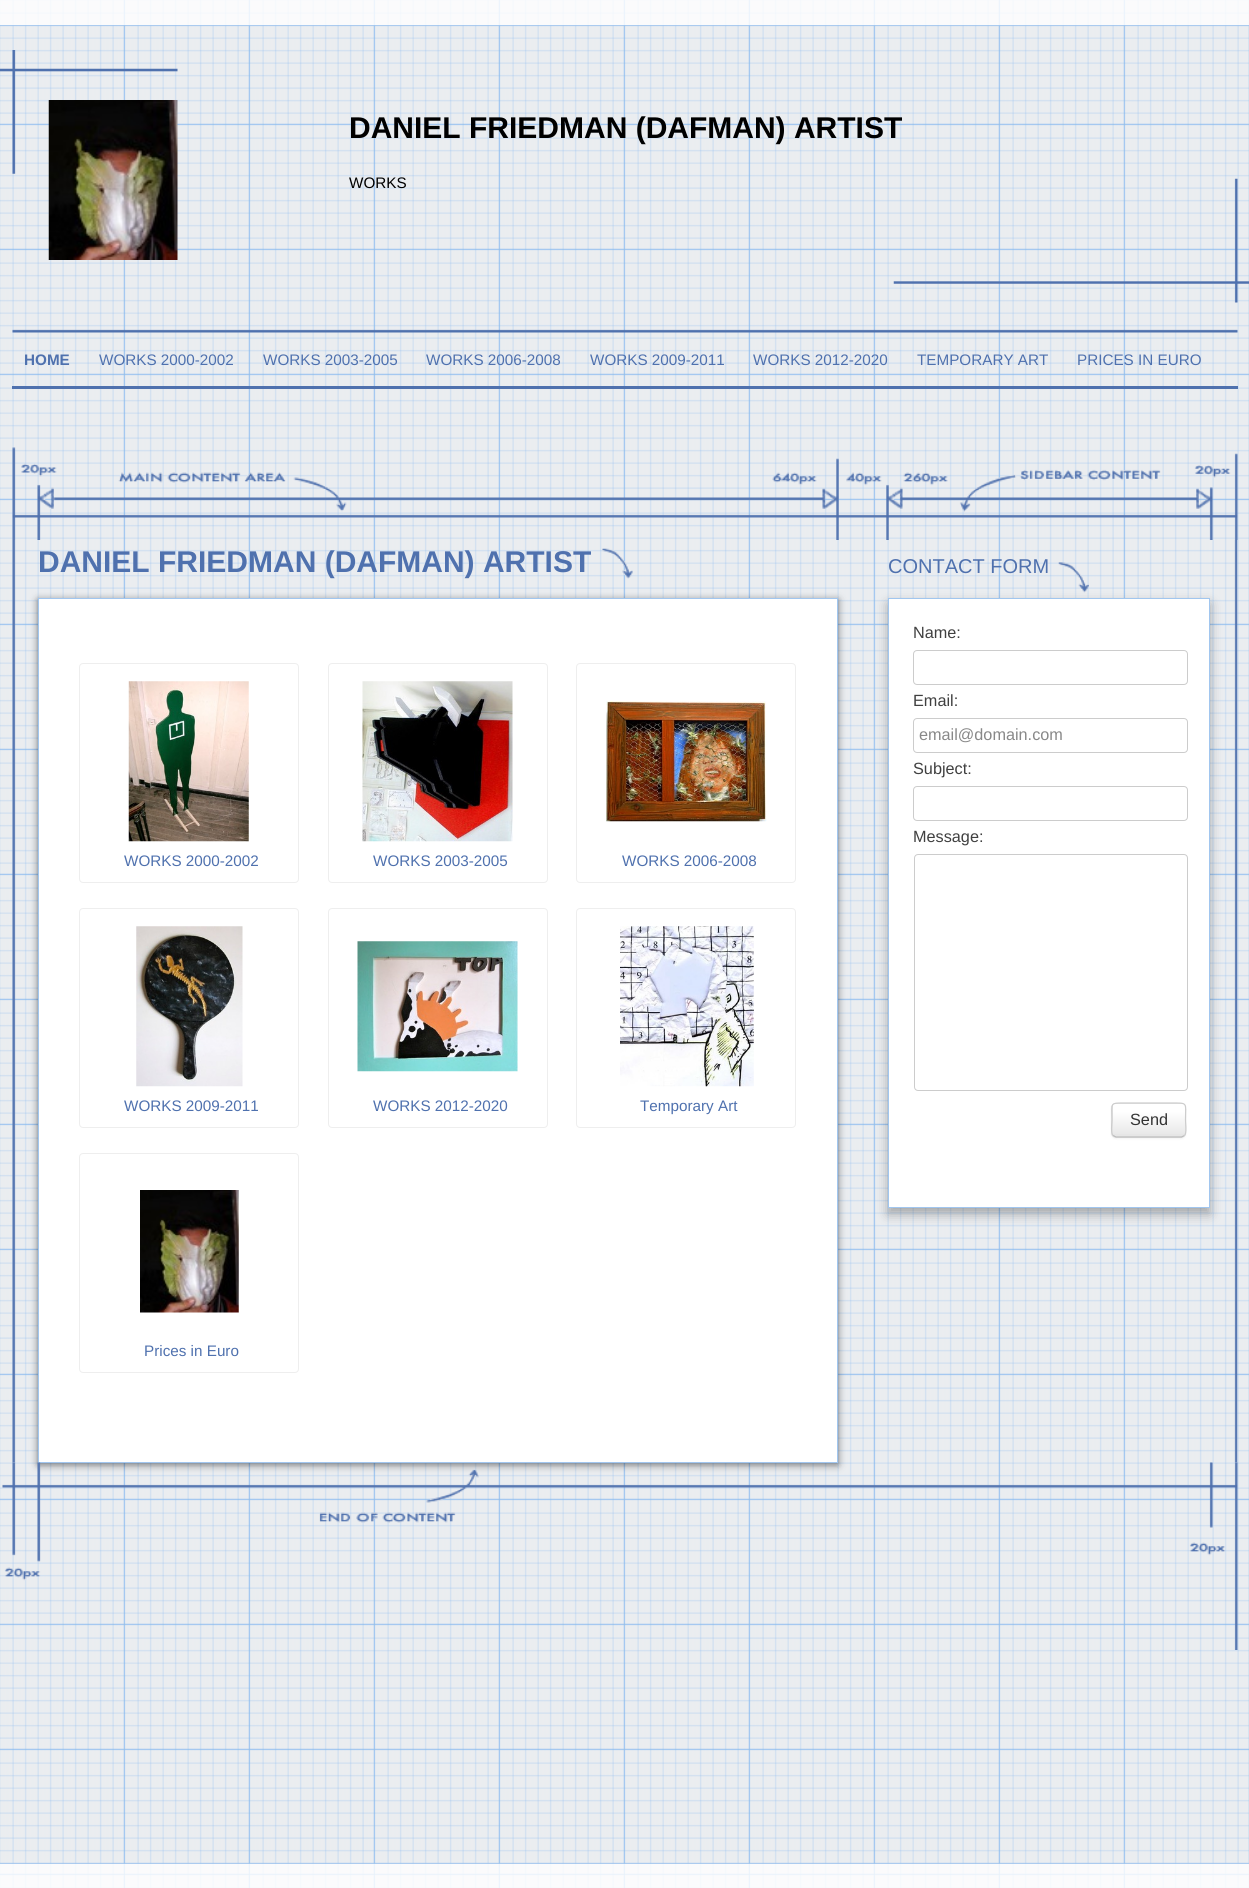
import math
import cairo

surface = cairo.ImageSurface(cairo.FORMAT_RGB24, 1249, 1888)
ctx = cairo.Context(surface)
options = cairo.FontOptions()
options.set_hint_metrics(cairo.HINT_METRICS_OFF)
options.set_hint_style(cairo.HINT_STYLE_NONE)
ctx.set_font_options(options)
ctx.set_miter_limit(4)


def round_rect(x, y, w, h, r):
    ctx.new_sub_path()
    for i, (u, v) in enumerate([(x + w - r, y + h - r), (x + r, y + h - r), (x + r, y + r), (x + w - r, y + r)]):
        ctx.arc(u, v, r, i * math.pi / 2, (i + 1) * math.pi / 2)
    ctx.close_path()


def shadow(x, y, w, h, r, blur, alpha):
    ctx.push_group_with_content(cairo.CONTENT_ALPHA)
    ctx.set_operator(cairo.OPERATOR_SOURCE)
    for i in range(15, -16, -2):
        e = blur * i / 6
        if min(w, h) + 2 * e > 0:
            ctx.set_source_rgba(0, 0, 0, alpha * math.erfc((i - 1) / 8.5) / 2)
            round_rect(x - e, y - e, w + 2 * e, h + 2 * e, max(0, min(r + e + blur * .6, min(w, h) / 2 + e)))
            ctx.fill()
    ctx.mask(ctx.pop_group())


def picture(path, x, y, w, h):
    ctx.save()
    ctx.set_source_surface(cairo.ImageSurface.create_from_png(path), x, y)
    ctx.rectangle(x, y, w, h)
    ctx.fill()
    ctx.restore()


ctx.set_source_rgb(1, 1, 1)
ctx.paint()
picture("img1.png", 0, 0, 1249, 1888)
ctx.set_source_rgba(1, 1, 1, 0.8)
ctx.rectangle(0, 0, 1249, 25)
ctx.fill()
ctx.set_source_rgba(0.631, 0.776, 0.937, 0.8)
ctx.rectangle(0, 25, 1249, 1)
ctx.fill()
ctx.set_source_rgba(1, 1, 1, 0.8)
ctx.rectangle(0, 1864, 1249, 24)
ctx.fill()
ctx.set_source_rgba(0.631, 0.776, 0.937, 0.8)
ctx.rectangle(0, 1863, 1249, 1)
ctx.fill()
picture("img2.png", 12, 447, 1226, 93)
picture("img3.png", 893, 178, 356, 125)
picture("img4.png", 0, 50, 178, 124)
picture("img5.png", 48, 100, 130, 160)
ctx.select_font_face("Liberation Sans", cairo.FONT_SLANT_NORMAL, cairo.FONT_WEIGHT_BOLD)
ctx.set_font_size(30)
ctx.set_source_rgb(0, 0, 0)
ctx.move_to(349, 138)
ctx.show_text("DANIEL FRIEDMAN (DAFMAN) ARTIST")
ctx.select_font_face("Liberation Sans")
ctx.set_font_size(15.25)
ctx.move_to(349, 188)
ctx.show_text("WORKS")
ctx.set_source_rgb(0.31, 0.443, 0.682)
ctx.rectangle(12, 386, 1226, 3)
ctx.fill()
picture("img6.png", 12, 329, 1226, 4)
ctx.select_font_face("Liberation Sans", cairo.FONT_SLANT_NORMAL, cairo.FONT_WEIGHT_BOLD)
ctx.move_to(24, 365)
ctx.show_text("HOME")
ctx.select_font_face("Liberation Sans")
ctx.move_to(99, 365)
ctx.show_text("WORKS 2000-2002")
ctx.move_to(263, 365)
ctx.show_text("WORKS 2003-2005")
ctx.move_to(426, 365)
ctx.show_text("WORKS 2006-2008")
ctx.move_to(590, 365)
ctx.show_text("WORKS 2009-2011")
ctx.move_to(753, 365)
ctx.show_text("WORKS 2012-2020")
ctx.move_to(917, 365)
ctx.show_text("TEMPORARY ART")
ctx.move_to(1077, 365)
ctx.show_text("PRICES IN EURO")
picture("img7.png", 12, 540, 1226, 923)
ctx.select_font_face("Liberation Sans", cairo.FONT_SLANT_NORMAL, cairo.FONT_WEIGHT_BOLD)
ctx.set_font_size(30)
ctx.move_to(38, 572)
ctx.show_text("DANIEL FRIEDMAN (DAFMAN) ARTIST")
picture("img8.png", 602, 548, 31, 31)
ctx.set_source_rgb(0, 0, 0)
shadow(38, 600, 800, 865, 0, 4, 0.5)
ctx.set_source_rgb(1, 1, 1)
ctx.rectangle(38.5, 598.5, 799, 864)
ctx.fill_preserve()
ctx.set_source_rgb(0.631, 0.776, 0.937)
ctx.set_line_width(1)
ctx.stroke()
round_rect(79.5, 663.5, 219, 219, 3.5)
ctx.set_source_rgb(0.933, 0.933, 0.933)
ctx.stroke()
picture("img9.png", 128, 681, 121, 161)
ctx.select_font_face("Liberation Sans")
ctx.set_font_size(15.25)
ctx.set_source_rgb(0.31, 0.443, 0.682)
ctx.move_to(124, 866)
ctx.show_text("WORKS 2000-2002")
round_rect(328.5, 663.5, 219, 219, 3.5)
ctx.set_source_rgb(0.933, 0.933, 0.933)
ctx.stroke()
picture("img10.png", 362, 681, 151, 161)
ctx.set_source_rgb(0.31, 0.443, 0.682)
ctx.move_to(373, 866)
ctx.show_text("WORKS 2003-2005")
round_rect(576.5, 663.5, 219, 219, 3.5)
ctx.set_source_rgb(0.933, 0.933, 0.933)
ctx.stroke()
picture("img11.png", 606, 701, 161, 121)
ctx.set_source_rgb(0.31, 0.443, 0.682)
ctx.move_to(622, 866)
ctx.show_text("WORKS 2006-2008")
round_rect(79.5, 908.5, 219, 219, 3.5)
ctx.set_source_rgb(0.933, 0.933, 0.933)
ctx.stroke()
picture("img12.png", 136, 926, 107, 161)
ctx.set_source_rgb(0.31, 0.443, 0.682)
ctx.move_to(124, 1111)
ctx.show_text("WORKS 2009-2011")
round_rect(328.5, 908.5, 219, 219, 3.5)
ctx.set_source_rgb(0.933, 0.933, 0.933)
ctx.stroke()
picture("img13.png", 357, 941, 161, 131)
ctx.set_source_rgb(0.31, 0.443, 0.682)
ctx.move_to(373, 1111)
ctx.show_text("WORKS 2012-2020")
round_rect(576.5, 908.5, 219, 219, 3.5)
ctx.set_source_rgb(0.933, 0.933, 0.933)
ctx.stroke()
picture("img14.png", 620, 926, 134, 161)
ctx.set_source_rgb(0.31, 0.443, 0.682)
ctx.move_to(640, 1111)
ctx.show_text("Temporary Art")
round_rect(79.5, 1153.5, 219, 219, 3.5)
ctx.set_source_rgb(0.933, 0.933, 0.933)
ctx.stroke()
picture("img15.png", 140, 1190, 99, 123)
ctx.set_source_rgb(0.31, 0.443, 0.682)
ctx.move_to(144, 1356)
ctx.show_text("Prices in Euro")
ctx.set_font_size(20)
ctx.move_to(888, 573)
ctx.show_text("CONTACT FORM")
ctx.set_source_rgb(0, 0, 0)
shadow(888, 604, 322, 610, 0, 6, 0.3)
picture("img16.png", 1058, 562, 31, 31)
ctx.set_source_rgb(1, 1, 1)
ctx.rectangle(888.5, 598.5, 321, 609)
ctx.fill_preserve()
ctx.set_source_rgb(0.631, 0.776, 0.937)
ctx.stroke()
ctx.set_font_size(16.25)
ctx.set_source_rgb(0.251, 0.251, 0.251)
ctx.move_to(913, 638)
ctx.show_text("Name:")
round_rect(913.5, 650.5, 274, 34, 3.5)
ctx.set_source_rgb(0.8, 0.8, 0.8)
ctx.stroke()
ctx.set_source_rgb(0.251, 0.251, 0.251)
ctx.move_to(913, 706)
ctx.show_text("Email:")
round_rect(913.5, 718.5, 274, 34, 3.5)
ctx.set_source_rgb(0.8, 0.8, 0.8)
ctx.stroke()
ctx.set_source_rgb(0.533, 0.533, 0.533)
ctx.move_to(919, 740)
ctx.show_text("email@domain.com")
ctx.set_source_rgb(0.251, 0.251, 0.251)
ctx.move_to(913, 774)
ctx.show_text("Subject:")
round_rect(913.5, 786.5, 274, 34, 3.5)
ctx.set_source_rgb(0.8, 0.8, 0.8)
ctx.stroke()
ctx.set_source_rgb(0.251, 0.251, 0.251)
ctx.move_to(913, 842)
ctx.show_text("Message:")
round_rect(914.5, 854.5, 273, 236, 3.5)
ctx.set_source_rgb(0.8, 0.8, 0.8)
ctx.stroke()
ctx.set_source_rgb(0, 0, 0)
shadow(1111, 1104, 75, 35, 5, 1, 0.05)
ctx.set_source_rgb(0.902, 0.902, 0.902)
round_rect(1111, 1103, 75, 35, 5)
ctx.fill()
gradient = cairo.LinearGradient(1149, 1104, 1149, 1136)
gradient.add_color_stop_rgba(0, 1, 1, 1, 1)
gradient.add_color_stop_rgba(0.25, 1, 1, 1, 1)
gradient.add_color_stop_rgba(1, 0.902, 0.902, 0.902, 1)
ctx.set_source(gradient)
ctx.rectangle(1113, 1104, 72, 30)
ctx.fill()
ctx.new_path()
ctx.move_to(1184.5, 1135.5)
ctx.line_to(1181.5, 1137)
ctx.line_to(1116, 1137)
ctx.line_to(1113, 1135.5)
ctx.set_source_rgb(0.733, 0.733, 0.733)
ctx.set_line_width(1.2)
ctx.stroke()
ctx.new_path()
ctx.move_to(1113, 1135.5)
ctx.curve_to(1110.5, 1133, 1112, 1123, 1112, 1120)
ctx.curve_to(1112, 1102, 1109, 1103, 1127, 1103)
ctx.line_to(1170.5, 1103)
ctx.curve_to(1188.5, 1103, 1185.5, 1102, 1185.5, 1120)
ctx.curve_to(1185.5, 1123, 1187, 1133, 1184.5, 1135.5)
ctx.set_source_rgb(0.8, 0.8, 0.8)
ctx.stroke()
ctx.set_source_rgb(0.2, 0.2, 0.2)
ctx.move_to(1130, 1125)
ctx.show_text("Send")
picture("img17.png", 2, 1462, 1236, 188)
surface.write_to_png("page.png")
